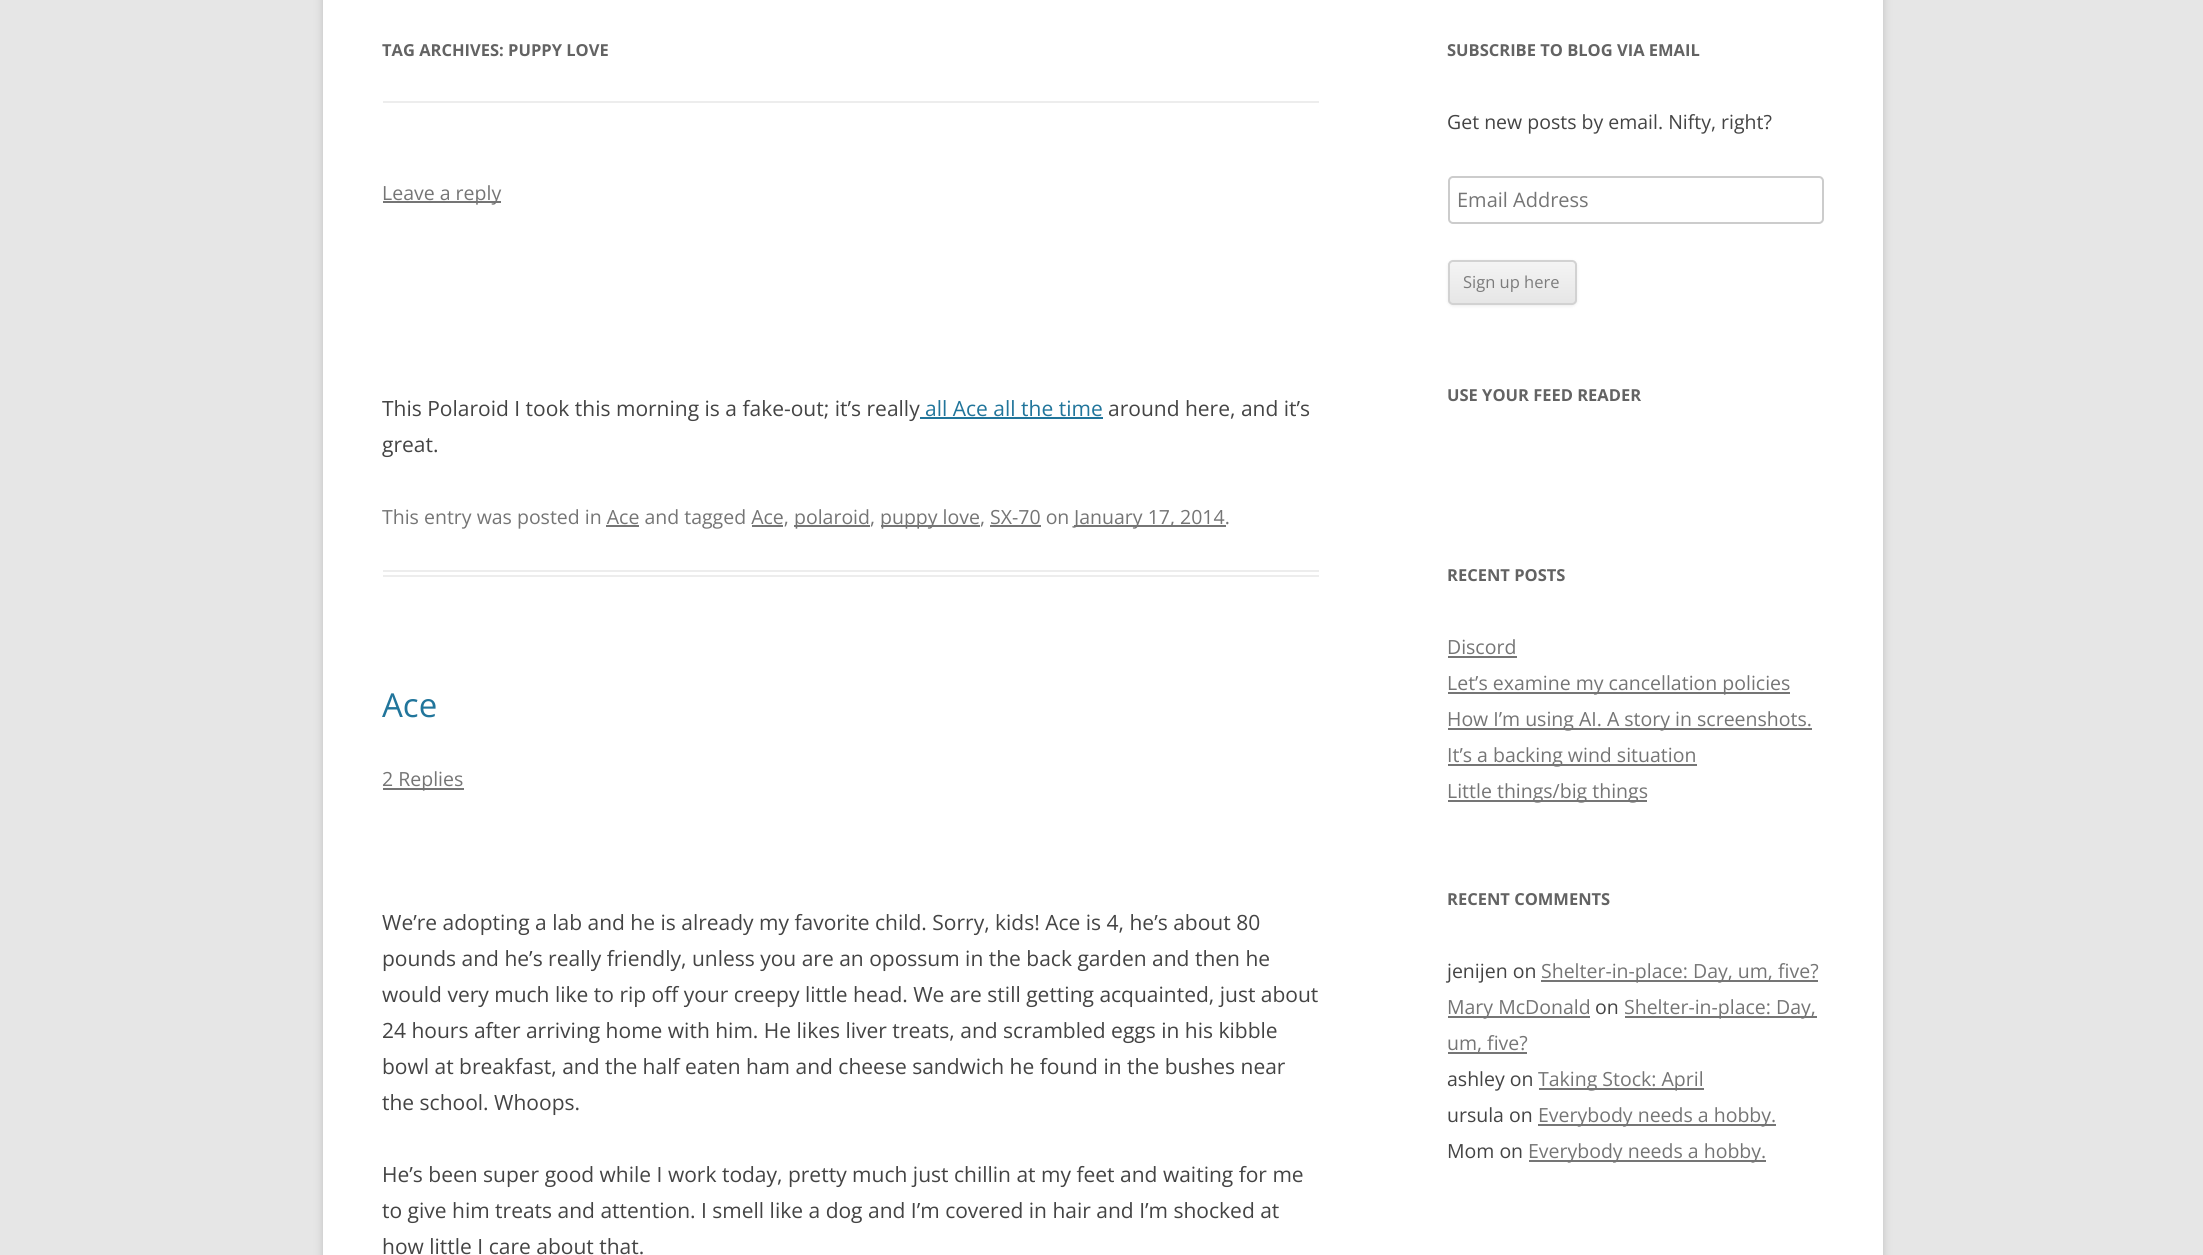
import math
import cairo

surface = cairo.ImageSurface(cairo.FORMAT_RGB24, 2203, 1255)
ctx = cairo.Context(surface)
options = cairo.FontOptions()
options.set_hint_metrics(cairo.HINT_METRICS_OFF)
options.set_hint_style(cairo.HINT_STYLE_NONE)
ctx.set_font_options(options)
ctx.set_miter_limit(4)


def round_rect(x, y, w, h, r):
    ctx.new_sub_path()
    for i, (u, v) in enumerate([(x + w - r, y + h - r), (x + r, y + h - r), (x + r, y + r), (x + w - r, y + r)]):
        ctx.arc(u, v, r, i * math.pi / 2, (i + 1) * math.pi / 2)
    ctx.close_path()


def shadow(x, y, w, h, r, blur, alpha):
    ctx.push_group_with_content(cairo.CONTENT_ALPHA)
    ctx.set_operator(cairo.OPERATOR_SOURCE)
    for i in range(15, -16, -2):
        e = blur * i / 6
        if min(w, h) + 2 * e > 0:
            ctx.set_source_rgba(0, 0, 0, alpha * math.erfc((i - 1) / 8.5) / 2)
            round_rect(x - e, y - e, w + 2 * e, h + 2 * e, max(0, min(r + e + blur * .6, min(w, h) / 2 + e)))
            ctx.fill()
    ctx.mask(ctx.pop_group())


ctx.set_source_rgb(0.902, 0.902, 0.902)
ctx.paint()
ctx.set_source_rgb(0.392, 0.392, 0.392)
shadow(323, -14, 1560, 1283, 0, 4.5, 0.3)
ctx.set_source_rgb(1, 1, 1)
ctx.rectangle(323, 0, 1560, 1255)
ctx.fill()
ctx.set_source_rgb(0.929, 0.929, 0.929)
ctx.rectangle(383, 101, 936, 2)
ctx.fill()
ctx.select_font_face("Open Sans", cairo.FONT_SLANT_NORMAL, cairo.FONT_WEIGHT_BOLD)
ctx.set_font_size(16.5)
ctx.set_source_rgb(0.388, 0.388, 0.388)
ctx.move_to(382, 56)
ctx.show_text("TAG ARCHIVES: PUPPY LOVE")
ctx.set_source_rgb(0.929, 0.929, 0.929)
ctx.rectangle(383, 570, 936, 2)
ctx.fill()
ctx.rectangle(383, 575, 936, 2)
ctx.fill()
ctx.set_source_rgb(0.459, 0.459, 0.459)
ctx.rectangle(383, 201, 118, 2)
ctx.fill()
ctx.select_font_face("Open Sans")
ctx.set_font_size(19.5)
ctx.move_to(382, 200)
ctx.show_text("Leave a reply")
ctx.set_font_size(21)
ctx.set_source_rgb(0.267, 0.267, 0.267)
ctx.move_to(382, 416)
ctx.show_text("This Polaroid I took this morning is a fake-out; it’s really")
ctx.set_source_rgb(0.129, 0.459, 0.608)
ctx.move_to(925, 416)
ctx.show_text("all Ace all the time")
ctx.rectangle(920, 417, 183, 2)
ctx.fill()
ctx.set_source_rgb(0.267, 0.267, 0.267)
ctx.move_to(1108, 416)
ctx.show_text("around here, and it’s")
ctx.move_to(382, 452)
ctx.show_text("great.")
ctx.set_font_size(19.5)
ctx.set_source_rgb(0.459, 0.459, 0.459)
ctx.move_to(382, 524)
ctx.show_text("This entry was posted in Ace and tagged Ace,")
ctx.rectangle(794, 525, 76, 2)
ctx.fill()
ctx.move_to(794, 524)
ctx.show_text("polaroid,")
ctx.rectangle(881, 525, 99, 2)
ctx.fill()
ctx.move_to(880, 524)
ctx.show_text("puppy love, SX-70 on")
ctx.rectangle(1074, 525, 152, 2)
ctx.fill()
ctx.move_to(1074, 524)
ctx.show_text("January 17, 2014.")
ctx.rectangle(606, 525, 33, 2)
ctx.fill()
ctx.rectangle(752, 525, 31, 2)
ctx.fill()
ctx.rectangle(990, 525, 51, 2)
ctx.fill()
ctx.set_font_size(33)
ctx.set_source_rgb(0.129, 0.459, 0.608)
ctx.move_to(382, 717)
ctx.show_text("Ace")
ctx.set_source_rgb(0.459, 0.459, 0.459)
ctx.rectangle(383, 788, 81, 2)
ctx.fill()
ctx.set_font_size(19.5)
ctx.move_to(382, 786)
ctx.show_text("2 Replies")
ctx.set_font_size(21)
ctx.set_source_rgb(0.267, 0.267, 0.267)
ctx.move_to(382, 930)
ctx.show_text("We’re adopting a lab and he is already my favorite child. Sorry, kids! Ace is 4, he’s about 80")
ctx.move_to(382, 966)
ctx.show_text("pounds and he’s really friendly, unless you are an opossum in the back garden and then he")
ctx.move_to(382, 1002)
ctx.show_text("would very much like to rip off your creepy little head. We are still getting acquainted, just about")
ctx.move_to(382, 1038)
ctx.show_text("24 hours after arriving home with him. He likes liver treats, and scrambled eggs in his kibble")
ctx.move_to(382, 1074)
ctx.show_text("bowl at breakfast, and the half eaten ham and cheese sandwich he found in the bushes near")
ctx.move_to(382, 1110)
ctx.show_text("the school. Whoops.")
ctx.move_to(382, 1182)
ctx.show_text("He’s been super good while I work today, pretty much just chillin at my feet and waiting for me")
ctx.move_to(382, 1218)
ctx.show_text("to give him treats and attention. I smell like a dog and I’m covered in hair and I’m shocked at")
ctx.move_to(382, 1254)
ctx.show_text("how little I care about that.")
ctx.select_font_face("Open Sans", cairo.FONT_SLANT_NORMAL, cairo.FONT_WEIGHT_BOLD)
ctx.set_font_size(16.5)
ctx.set_source_rgb(0.388, 0.388, 0.388)
ctx.move_to(1447, 56)
ctx.show_text("SUBSCRIBE TO BLOG VIA EMAIL")
ctx.select_font_face("Open Sans")
ctx.set_font_size(19.5)
ctx.set_source_rgb(0.267, 0.267, 0.267)
ctx.move_to(1447, 129)
ctx.show_text("Get new posts by email. Nifty, right?")
round_rect(1449, 177, 374, 46, 4)
ctx.set_source_rgb(0.8, 0.8, 0.8)
ctx.stroke()
ctx.set_font_size(20)
ctx.set_source_rgb(0.459, 0.459, 0.459)
ctx.move_to(1457, 207)
ctx.show_text("Email Address")
ctx.set_source_rgb(0.251, 0.251, 0.251)
shadow(1448, 261, 129, 45, 5, 1.5, 0.1)
ctx.save()
round_rect(1448, 260, 129, 45, 5)
ctx.clip()
gradient = cairo.LinearGradient(1512, 261, 1512, 303)
gradient.add_color_stop_rgba(0, 0.957, 0.957, 0.957, 1)
gradient.add_color_stop_rgba(1, 0.902, 0.902, 0.902, 1)
ctx.set_source(gradient)
ctx.rectangle(1448, 261, 129, 42)
ctx.fill()
ctx.restore()
round_rect(1449, 261, 127, 43, 4)
ctx.set_source_rgb(0.824, 0.824, 0.824)
ctx.stroke()
ctx.set_font_size(16.5)
ctx.set_source_rgb(0.486, 0.486, 0.486)
ctx.move_to(1463, 288)
ctx.show_text("Sign up here")
ctx.select_font_face("Open Sans", cairo.FONT_SLANT_NORMAL, cairo.FONT_WEIGHT_BOLD)
ctx.set_source_rgb(0.388, 0.388, 0.388)
ctx.move_to(1447, 401)
ctx.show_text("USE YOUR FEED READER")
ctx.move_to(1447, 581)
ctx.show_text("RECENT POSTS")
ctx.select_font_face("Open Sans")
ctx.set_font_size(19.5)
ctx.set_source_rgb(0.459, 0.459, 0.459)
ctx.move_to(1447, 654)
ctx.show_text("Discord")
ctx.rectangle(1448, 656, 69, 2)
ctx.fill()
ctx.rectangle(1448, 692, 342, 2)
ctx.fill()
ctx.move_to(1447, 690)
ctx.show_text("Let’s examine my cancellation policies")
ctx.rectangle(1448, 728, 364, 2)
ctx.fill()
ctx.move_to(1447, 726)
ctx.show_text("How I’m using AI. A story in screenshots.")
ctx.rectangle(1448, 764, 249, 2)
ctx.fill()
ctx.move_to(1447, 762)
ctx.show_text("It’s a backing wind situation")
ctx.rectangle(1448, 800, 199, 2)
ctx.fill()
ctx.move_to(1447, 798)
ctx.show_text("Little things/big things")
ctx.select_font_face("Open Sans", cairo.FONT_SLANT_NORMAL, cairo.FONT_WEIGHT_BOLD)
ctx.set_font_size(16.5)
ctx.set_source_rgb(0.388, 0.388, 0.388)
ctx.move_to(1447, 905)
ctx.show_text("RECENT COMMENTS")
ctx.select_font_face("Open Sans")
ctx.set_font_size(19.5)
ctx.set_source_rgb(0.267, 0.267, 0.267)
ctx.move_to(1447, 978)
ctx.show_text("jenijen on")
ctx.set_source_rgb(0.459, 0.459, 0.459)
ctx.rectangle(1541, 980, 277, 2)
ctx.fill()
ctx.move_to(1541, 978)
ctx.show_text("Shelter-in-place: Day, um, five?")
ctx.rectangle(1448, 1016, 142, 2)
ctx.fill()
ctx.move_to(1447, 1014)
ctx.show_text("Mary McDonald")
ctx.set_source_rgb(0.267, 0.267, 0.267)
ctx.move_to(1595, 1014)
ctx.show_text("on")
ctx.set_source_rgb(0.459, 0.459, 0.459)
ctx.rectangle(1625, 1016, 192, 2)
ctx.fill()
ctx.move_to(1624, 1014)
ctx.show_text("Shelter-in-place: Day,")
ctx.rectangle(1448, 1052, 79, 2)
ctx.fill()
ctx.move_to(1447, 1050)
ctx.show_text("um, five?")
ctx.set_source_rgb(0.267, 0.267, 0.267)
ctx.move_to(1447, 1086)
ctx.show_text("ashley on")
ctx.set_source_rgb(0.459, 0.459, 0.459)
ctx.rectangle(1539, 1088, 165, 2)
ctx.fill()
ctx.move_to(1538, 1086)
ctx.show_text("Taking Stock: April")
ctx.set_source_rgb(0.267, 0.267, 0.267)
ctx.move_to(1447, 1122)
ctx.show_text("ursula on")
ctx.set_source_rgb(0.459, 0.459, 0.459)
ctx.rectangle(1538, 1124, 238, 2)
ctx.fill()
ctx.move_to(1538, 1122)
ctx.show_text("Everybody needs a hobby.")
ctx.set_source_rgb(0.267, 0.267, 0.267)
ctx.move_to(1447, 1158)
ctx.show_text("Mom on")
ctx.set_source_rgb(0.459, 0.459, 0.459)
ctx.rectangle(1529, 1160, 237, 2)
ctx.fill()
ctx.move_to(1528, 1158)
ctx.show_text("Everybody needs a hobby.")
surface.write_to_png("page.png")
